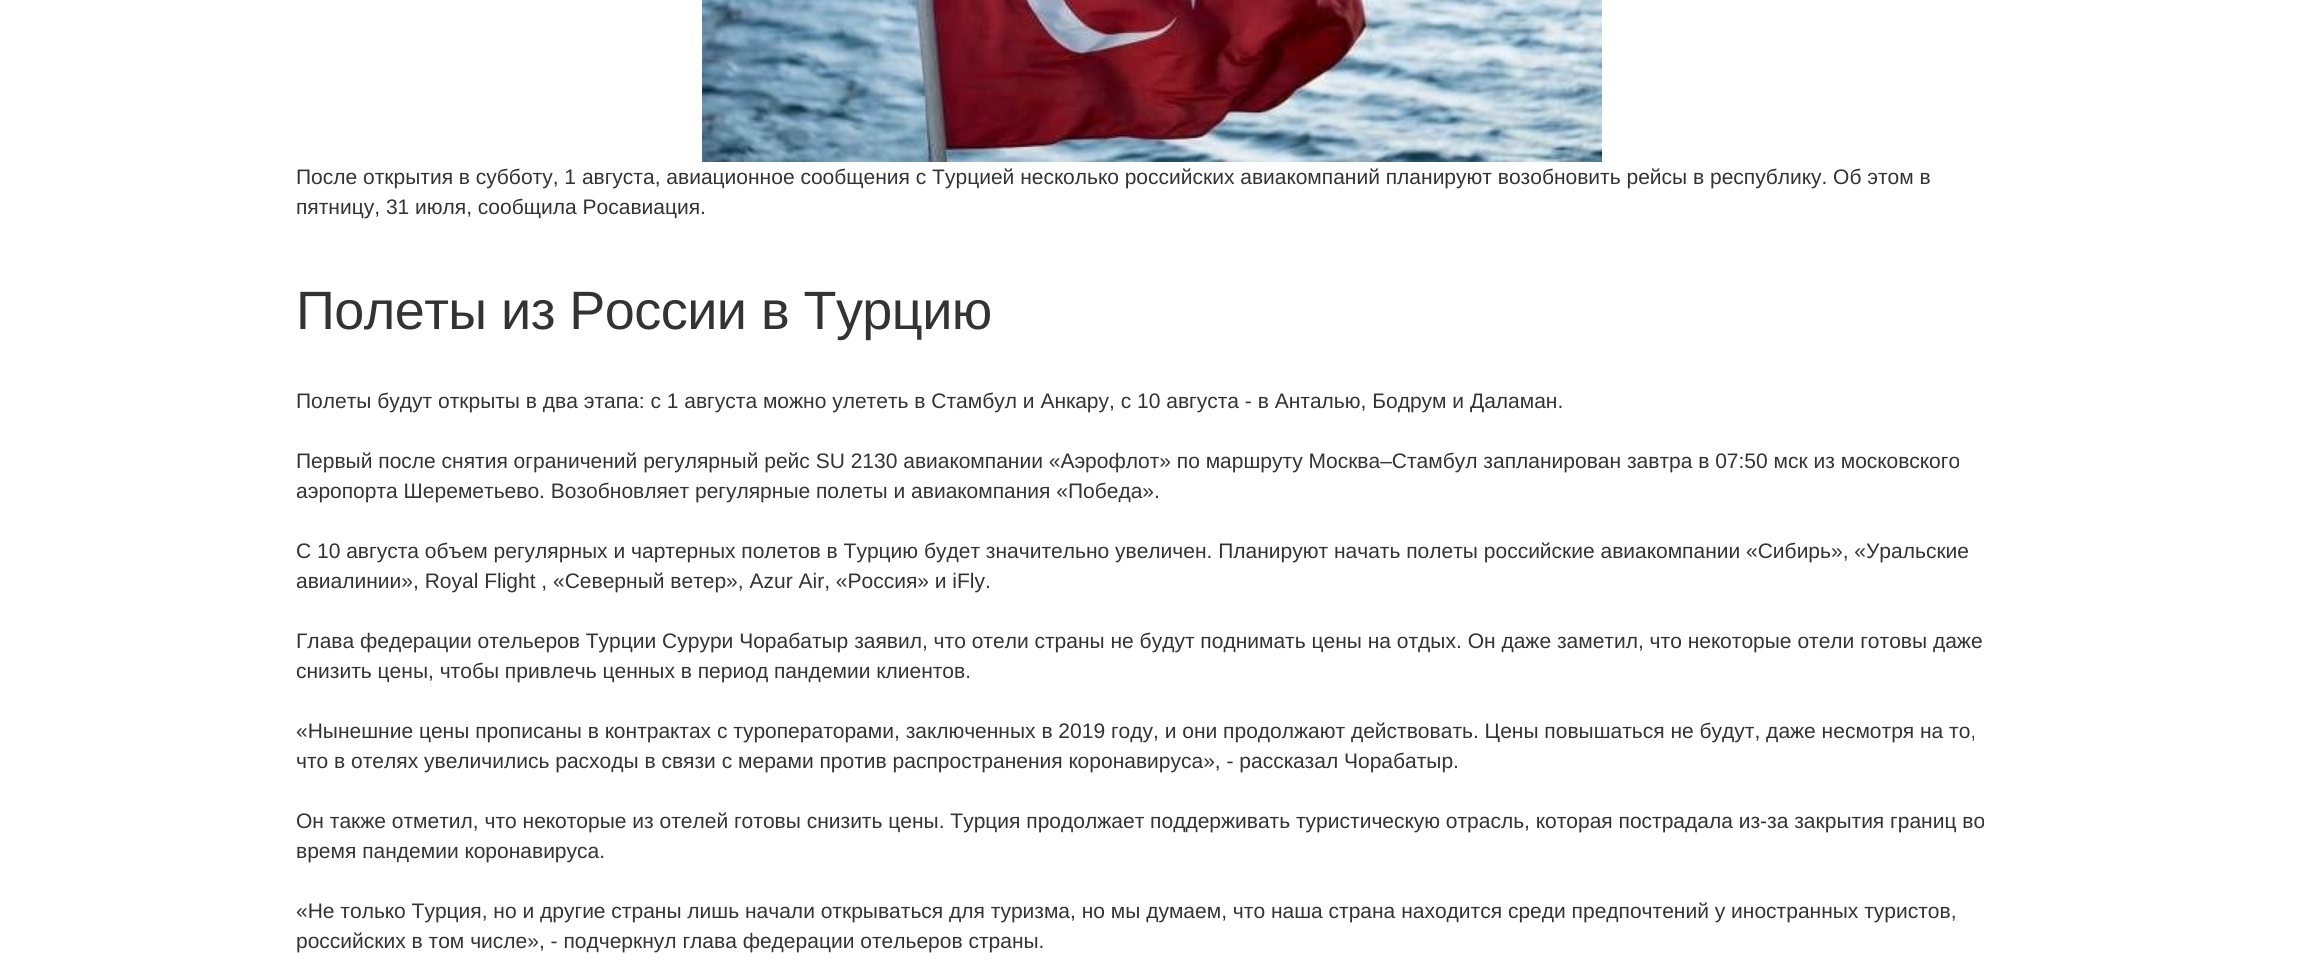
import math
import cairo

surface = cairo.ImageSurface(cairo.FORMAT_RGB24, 2302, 969)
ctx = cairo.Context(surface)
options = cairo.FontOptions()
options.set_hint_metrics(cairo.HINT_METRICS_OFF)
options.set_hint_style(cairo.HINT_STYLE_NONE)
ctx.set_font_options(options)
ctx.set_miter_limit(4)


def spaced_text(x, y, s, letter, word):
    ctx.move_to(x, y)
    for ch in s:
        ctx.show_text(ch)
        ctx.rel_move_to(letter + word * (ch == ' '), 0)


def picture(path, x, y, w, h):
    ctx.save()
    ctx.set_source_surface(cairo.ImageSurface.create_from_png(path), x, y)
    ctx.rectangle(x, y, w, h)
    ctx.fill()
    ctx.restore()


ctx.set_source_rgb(1, 1, 1)
ctx.paint()
picture("img1.png", 702, 0, 900, 162)
ctx.select_font_face("Liberation Sans")
ctx.set_font_size(21)
ctx.set_source_rgb(0.2, 0.2, 0.2)
ctx.move_to(296, 184)
ctx.show_text("После открытия в субботу, 1 августа, авиационное сообщения с Турцией несколько российских авиакомпаний планируют возобновить рейсы в республику. Об этом в")
ctx.move_to(296, 214)
ctx.show_text("пятницу, 31 июля, сообщила Росавиация.")
ctx.set_font_size(54)
spaced_text(296, 329, "Полеты из России в Турцию", -0.55, 0)
ctx.set_font_size(21)
ctx.move_to(296, 408)
ctx.show_text("Полеты будут открыты в два этапа: с 1 августа можно улететь в Стамбул и Анкару, с 10 августа - в Анталью, Бодрум и Даламан.")
ctx.move_to(296, 468)
ctx.show_text("Первый после снятия ограничений регулярный рейс SU 2130 авиакомпании «Аэрофлот» по маршруту Москва–Стамбул запланирован завтра в 07:50 мск из московского")
ctx.move_to(296, 498)
ctx.show_text("аэропорта Шереметьево. Возобновляет регулярные полеты и авиакомпания «Победа».")
ctx.move_to(296, 558)
ctx.show_text("С 10 августа объем регулярных и чартерных полетов в Турцию будет значительно увеличен. Планируют начать полеты российские авиакомпании «Сибирь», «Уральские")
ctx.move_to(296, 588)
ctx.show_text("авиалинии», Royal Flight , «Северный ветер», Azur Air, «Россия» и iFly.")
ctx.move_to(296, 648)
ctx.show_text("Глава федерации отельеров Турции Сурури Чорабатыр заявил, что отели страны не будут поднимать цены на отдых. Он даже заметил, что некоторые отели готовы даже")
ctx.move_to(296, 678)
ctx.show_text("снизить цены, чтобы привлечь ценных в период пандемии клиентов.")
ctx.move_to(296, 738)
ctx.show_text("«Нынешние цены прописаны в контрактах с туроператорами, заключенных в 2019 году, и они продолжают действовать. Цены повышаться не будут, даже несмотря на то,")
ctx.move_to(296, 768)
ctx.show_text("что в отелях увеличились расходы в связи с мерами против распространения коронавируса», - рассказал Чорабатыр.")
ctx.move_to(296, 828)
ctx.show_text("Он также отметил, что некоторые из отелей готовы снизить цены. Турция продолжает поддерживать туристическую отрасль, которая пострадала из-за закрытия границ во")
ctx.move_to(296, 858)
ctx.show_text("время пандемии коронавируса.")
ctx.move_to(296, 918)
ctx.show_text("«Не только Турция, но и другие страны лишь начали открываться для туризма, но мы думаем, что наша страна находится среди предпочтений у иностранных туристов,")
ctx.move_to(296, 948)
ctx.show_text("российских в том числе», - подчеркнул глава федерации отельеров страны.")
surface.write_to_png("page.png")
